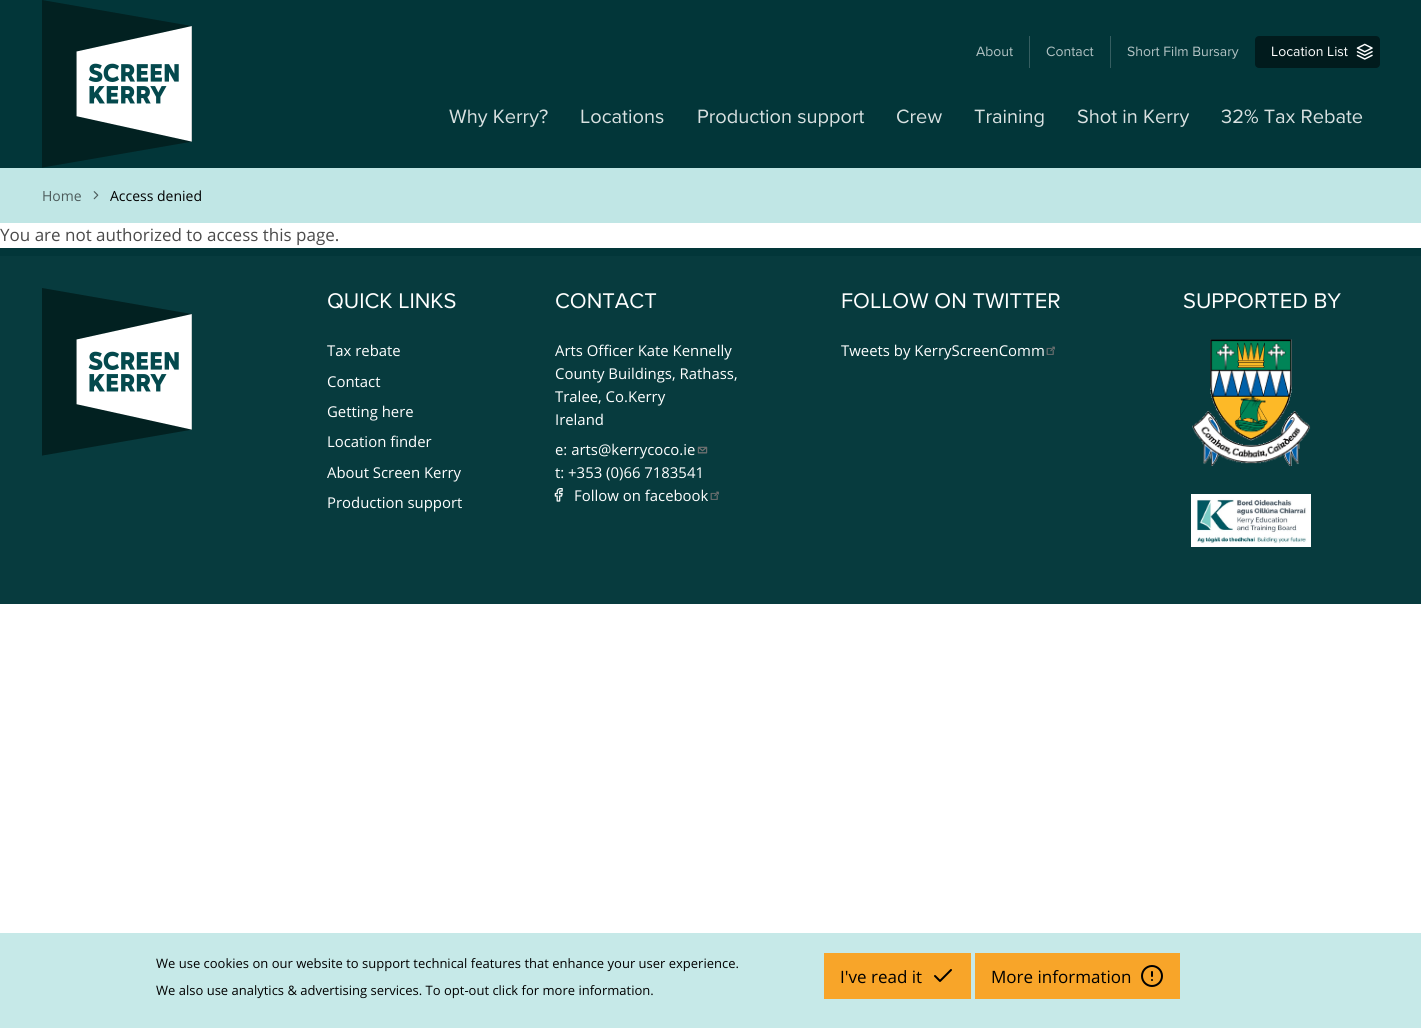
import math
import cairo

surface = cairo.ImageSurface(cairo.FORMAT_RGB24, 1421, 1028)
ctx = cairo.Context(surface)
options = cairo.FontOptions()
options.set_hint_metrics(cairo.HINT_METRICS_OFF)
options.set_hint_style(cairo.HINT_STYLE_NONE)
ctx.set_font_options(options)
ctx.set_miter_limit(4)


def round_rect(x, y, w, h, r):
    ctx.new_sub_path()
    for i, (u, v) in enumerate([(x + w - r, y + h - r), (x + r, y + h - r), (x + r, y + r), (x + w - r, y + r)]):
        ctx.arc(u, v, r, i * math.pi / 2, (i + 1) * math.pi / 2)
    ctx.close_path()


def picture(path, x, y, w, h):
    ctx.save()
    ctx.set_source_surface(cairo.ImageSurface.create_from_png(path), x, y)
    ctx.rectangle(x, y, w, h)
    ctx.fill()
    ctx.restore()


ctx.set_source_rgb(1, 1, 1)
ctx.paint()
ctx.set_source_rgb(0.008, 0.212, 0.224)
ctx.rectangle(0, 0, 1421, 168)
ctx.fill()
ctx.select_font_face("Proxima Nova")
ctx.set_font_size(14)
ctx.set_source_rgb(0.702, 0.765, 0.769)
ctx.move_to(976, 56)
ctx.show_text("About")
ctx.set_source_rgb(0.208, 0.369, 0.38)
ctx.rectangle(1029, 36, 1, 32)
ctx.fill()
ctx.set_source_rgb(0.702, 0.765, 0.769)
ctx.move_to(1046, 56)
ctx.show_text("Contact")
ctx.set_source_rgb(0.208, 0.369, 0.38)
ctx.rectangle(1110, 36, 1, 32)
ctx.fill()
ctx.set_source_rgb(0.702, 0.765, 0.769)
ctx.move_to(1127, 56)
ctx.show_text("Short Film Bursary")
ctx.set_source_rgb(0.004, 0.106, 0.114)
round_rect(1255, 36, 125, 32, 4)
ctx.fill()
ctx.set_source_rgb(1, 1, 1)
ctx.move_to(1271, 56)
ctx.show_text("Location List")
picture("img1.png", 1356, 43, 17, 17)
picture("img2.png", 42, 0, 150, 168)
ctx.set_font_size(20)
ctx.set_source_rgb(0.851, 0.882, 0.882)
ctx.move_to(449, 123)
ctx.show_text("Why Kerry?")
ctx.move_to(580, 123)
ctx.show_text("Locations")
ctx.move_to(697, 123)
ctx.show_text("Production support")
ctx.move_to(896, 123)
ctx.show_text("Crew")
ctx.move_to(974, 123)
ctx.show_text("Training")
ctx.move_to(1077, 123)
ctx.show_text("Shot in Kerry")
ctx.move_to(1221, 123)
ctx.show_text("32% Tax Rebate")
ctx.set_source_rgb(0.753, 0.902, 0.898)
ctx.rectangle(0, 168, 1421, 55)
ctx.fill()
ctx.select_font_face("Open Sans")
ctx.set_font_size(14)
ctx.set_source_rgb(0.302, 0.361, 0.361)
ctx.move_to(42, 201)
ctx.show_text("Home")
picture("img3.png", 93, 191, 6, 9)
ctx.set_source_rgb(0, 0, 0)
ctx.move_to(110, 201)
ctx.show_text("Access denied")
ctx.set_font_size(17)
ctx.set_source_rgb(0.29, 0.29, 0.29)
ctx.move_to(0, 241)
ctx.show_text("You are not authorized to access this page.")
ctx.set_source_rgb(0.031, 0.231, 0.243)
ctx.rectangle(0, 256, 1421, 348)
ctx.fill()
ctx.set_source_rgb(0.008, 0.212, 0.224)
ctx.rectangle(0, 248, 1421, 8)
ctx.fill()
picture("img4.png", 42, 288, 150, 168)
ctx.select_font_face("Proxima Nova")
ctx.set_font_size(22)
ctx.set_source_rgb(1, 1, 1)
ctx.move_to(327, 308)
ctx.show_text("QUICK LINKS")
ctx.select_font_face("Open Sans")
ctx.set_font_size(14.9)
ctx.move_to(327, 356)
ctx.show_text("Tax rebate")
ctx.move_to(327, 387)
ctx.show_text("Contact")
ctx.move_to(327, 417)
ctx.show_text("Getting here")
ctx.move_to(327, 447)
ctx.show_text("Location finder")
ctx.move_to(327, 478)
ctx.show_text("About Screen Kerry")
ctx.move_to(327, 508)
ctx.show_text("Production support")
ctx.select_font_face("Proxima Nova")
ctx.set_font_size(22)
ctx.move_to(555, 308)
ctx.show_text("CONTACT")
ctx.select_font_face("Open Sans")
ctx.set_font_size(14.9)
ctx.move_to(555, 356)
ctx.show_text("Arts Officer Kate Kennelly")
ctx.move_to(555, 379)
ctx.show_text("County Buildings, Rathass,")
ctx.move_to(555, 402)
ctx.show_text("Tralee, Co.Kerry")
ctx.move_to(555, 425)
ctx.show_text("Ireland")
ctx.move_to(555, 455)
ctx.show_text("e: arts@kerrycoco.ie")
picture("img5.png", 697, 446, 11, 8)
ctx.move_to(555, 478)
ctx.show_text("t: +353 (0)66 7183541")
picture("img6.png", 554, 488, 9, 14)
ctx.move_to(574, 501)
ctx.show_text("Follow on facebook")
picture("img7.png", 710, 491, 9, 9)
ctx.select_font_face("Proxima Nova")
ctx.set_font_size(22)
ctx.move_to(841, 308)
ctx.show_text("FOLLOW ON TWITTER")
ctx.select_font_face("Open Sans")
ctx.set_font_size(14.9)
ctx.move_to(841, 356)
ctx.show_text("Tweets by KerryScreenComm")
picture("img7.png", 1046, 346, 9, 9)
ctx.select_font_face("Proxima Nova")
ctx.set_font_size(22)
ctx.move_to(1183, 308)
ctx.show_text("SUPPORTED BY")
picture("img8.png", 1192, 339, 119, 127)
picture("img9.png", 1191, 494, 120, 53)
ctx.set_source_rgb(0.776, 0.914, 0.91)
ctx.rectangle(0, 933, 1421, 95)
ctx.fill()
ctx.select_font_face("Open Sans")
ctx.set_font_size(13)
ctx.set_source_rgb(0, 0, 0)
ctx.move_to(156, 968)
ctx.show_text("We use cookies on our website to support technical features that enhance your user experience.")
ctx.move_to(156, 995)
ctx.show_text("We also use analytics & advertising services. To opt-out click for more information.")
ctx.set_source_rgb(0.969, 0.647, 0.161)
ctx.rectangle(824, 953, 147, 46)
ctx.fill()
ctx.set_font_size(17)
ctx.set_source_rgb(0, 0, 0)
ctx.move_to(840, 983)
ctx.show_text("I've read it")
picture("img10.png", 934, 969, 18, 13)
ctx.set_source_rgb(0.969, 0.647, 0.161)
ctx.rectangle(975, 953, 205, 46)
ctx.fill()
ctx.set_source_rgb(0, 0, 0)
ctx.move_to(991, 983)
ctx.show_text("More information")
picture("img11.png", 1141, 965, 22, 22)
surface.write_to_png("page.png")
